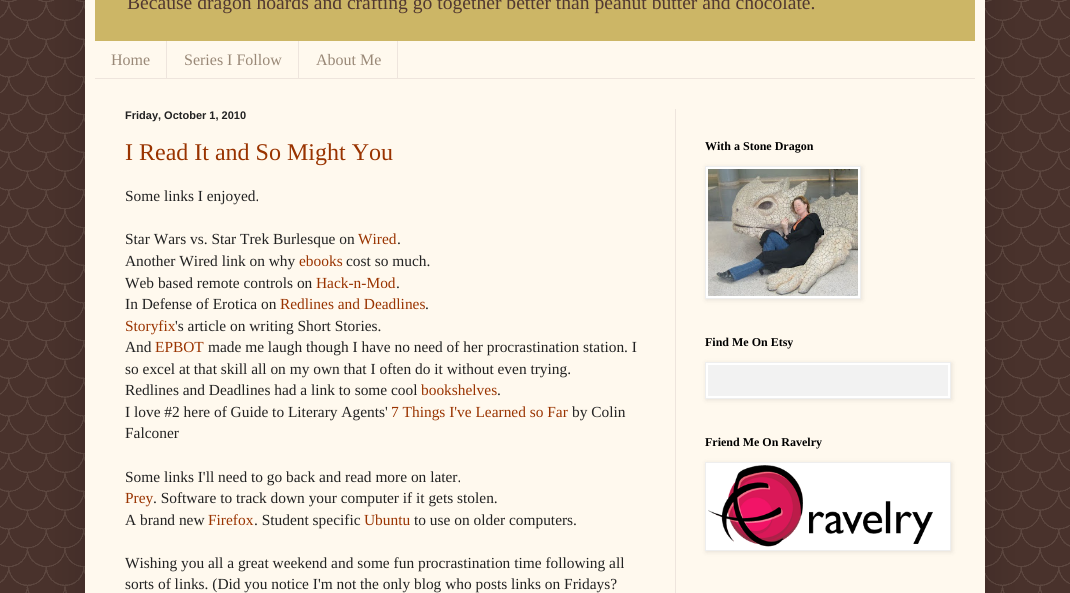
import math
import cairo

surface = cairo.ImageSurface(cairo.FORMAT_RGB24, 1070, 593)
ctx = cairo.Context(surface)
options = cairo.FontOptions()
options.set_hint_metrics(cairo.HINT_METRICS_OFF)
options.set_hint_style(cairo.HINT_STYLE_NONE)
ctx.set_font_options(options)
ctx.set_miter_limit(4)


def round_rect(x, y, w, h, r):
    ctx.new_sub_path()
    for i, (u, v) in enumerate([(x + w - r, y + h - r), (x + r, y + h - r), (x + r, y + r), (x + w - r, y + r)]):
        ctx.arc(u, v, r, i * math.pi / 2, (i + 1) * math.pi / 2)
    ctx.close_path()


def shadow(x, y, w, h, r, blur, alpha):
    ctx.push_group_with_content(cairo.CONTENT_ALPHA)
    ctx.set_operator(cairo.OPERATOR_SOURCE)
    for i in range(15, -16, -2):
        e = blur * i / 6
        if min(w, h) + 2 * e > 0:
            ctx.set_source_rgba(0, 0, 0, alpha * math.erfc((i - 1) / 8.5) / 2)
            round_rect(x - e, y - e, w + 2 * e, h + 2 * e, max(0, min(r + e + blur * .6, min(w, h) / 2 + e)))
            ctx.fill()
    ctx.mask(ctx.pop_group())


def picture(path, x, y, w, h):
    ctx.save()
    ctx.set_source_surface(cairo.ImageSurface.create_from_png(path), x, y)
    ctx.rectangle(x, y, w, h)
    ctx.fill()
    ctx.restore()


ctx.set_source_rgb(0.318, 0.22, 0.192)
ctx.paint()
picture("img1.png", 0, 0, 1070, 593)
ctx.set_source_rgb(0, 0, 0)
shadow(85, -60, 900, 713, 0, 20, 0.15)
ctx.set_source_rgb(1, 0.976, 0.933)
ctx.rectangle(85, 0, 900, 593)
ctx.fill()
ctx.set_source_rgb(0.8, 0.714, 0.4)
ctx.rectangle(95, 0, 880, 41)
ctx.fill()
ctx.select_font_face("Liberation Serif")
ctx.set_font_size(19.6)
ctx.set_source_rgb(0.318, 0.22, 0.192)
ctx.move_to(127, 9)
ctx.show_text("Because dragon hoards and crafting go together better than peanut butter and chocolate.")
ctx.set_source_rgb(0.933, 0.898, 0.867)
ctx.rectangle(95, 78, 880, 1)
ctx.fill()
ctx.rectangle(166, 41, 1, 37)
ctx.fill()
ctx.set_font_size(16)
ctx.set_source_rgb(0.6, 0.533, 0.467)
ctx.move_to(111, 65)
ctx.show_text("Home")
ctx.set_source_rgb(0.933, 0.898, 0.867)
ctx.rectangle(298, 41, 1, 37)
ctx.fill()
ctx.set_source_rgb(0.6, 0.533, 0.467)
ctx.move_to(184, 65)
ctx.show_text("Series I Follow")
ctx.set_source_rgb(0.933, 0.898, 0.867)
ctx.rectangle(397, 41, 1, 37)
ctx.fill()
ctx.set_source_rgb(0.6, 0.533, 0.467)
ctx.move_to(316, 65)
ctx.show_text("About Me")
ctx.set_source_rgb(0.933, 0.898, 0.867)
ctx.rectangle(675, 109, 1, 484)
ctx.fill()
ctx.select_font_face("Liberation Sans", cairo.FONT_SLANT_NORMAL, cairo.FONT_WEIGHT_BOLD)
ctx.set_font_size(11)
ctx.set_source_rgb(0.133, 0.133, 0.133)
ctx.move_to(125, 119)
ctx.show_text("Friday, October 1, 2010")
ctx.select_font_face("Liberation Serif")
ctx.set_font_size(24)
ctx.set_source_rgb(0.6, 0.2, 0)
ctx.move_to(125, 160)
ctx.show_text("I Read It and So Might You")
ctx.set_font_size(15.4)
ctx.set_source_rgb(0.133, 0.133, 0.133)
ctx.move_to(125, 201)
ctx.show_text("Some links I enjoyed.")
ctx.move_to(125, 244)
ctx.show_text("Star Wars vs. Star Trek Burlesque on")
ctx.set_source_rgb(0.6, 0.2, 0)
ctx.move_to(358, 244)
ctx.show_text("Wired")
ctx.set_source_rgb(0.133, 0.133, 0.133)
ctx.move_to(397, 244)
ctx.show_text(".")
ctx.move_to(125, 266)
ctx.show_text("Another Wired link on why")
ctx.set_source_rgb(0.6, 0.2, 0)
ctx.move_to(299, 266)
ctx.show_text("ebooks")
ctx.set_source_rgb(0.133, 0.133, 0.133)
ctx.move_to(346, 266)
ctx.show_text("cost so much.")
ctx.move_to(125, 288)
ctx.show_text("Web based remote controls on")
ctx.set_source_rgb(0.6, 0.2, 0)
ctx.move_to(316, 288)
ctx.show_text("Hack-n-Mod")
ctx.set_source_rgb(0.133, 0.133, 0.133)
ctx.move_to(396, 288)
ctx.show_text(".")
ctx.move_to(125, 309)
ctx.show_text("In Defense of Erotica on")
ctx.set_source_rgb(0.6, 0.2, 0)
ctx.move_to(280, 309)
ctx.show_text("Redlines and Deadlines")
ctx.set_source_rgb(0.133, 0.133, 0.133)
ctx.move_to(425, 309)
ctx.show_text(".")
ctx.set_source_rgb(0.6, 0.2, 0)
ctx.move_to(125, 331)
ctx.show_text("Storyfix")
ctx.set_source_rgb(0.133, 0.133, 0.133)
ctx.move_to(175, 331)
ctx.show_text("'s article on writing Short Stories.")
ctx.move_to(125, 352)
ctx.show_text("And")
ctx.set_source_rgb(0.6, 0.2, 0)
ctx.move_to(155, 352)
ctx.show_text("EPBOT")
ctx.set_source_rgb(0.133, 0.133, 0.133)
ctx.move_to(208, 352)
ctx.show_text("made me laugh though I have no need of her procrastination station. I")
ctx.move_to(125, 374)
ctx.show_text("so excel at that skill all on my own that I often do it without even trying.")
ctx.move_to(125, 395)
ctx.show_text("Redlines and Deadlines had a link to some cool")
ctx.set_source_rgb(0.6, 0.2, 0)
ctx.move_to(421, 395)
ctx.show_text("bookshelves")
ctx.set_source_rgb(0.133, 0.133, 0.133)
ctx.move_to(497, 395)
ctx.show_text(".")
ctx.move_to(125, 417)
ctx.show_text("I love #2 here of Guide to Literary Agents'")
ctx.set_source_rgb(0.6, 0.2, 0)
ctx.move_to(391, 417)
ctx.show_text("7 Things I've Learned so Far")
ctx.set_source_rgb(0.133, 0.133, 0.133)
ctx.move_to(572, 417)
ctx.show_text("by Colin")
ctx.move_to(125, 438)
ctx.show_text("Falconer")
ctx.move_to(125, 482)
ctx.show_text("Some links I'll need to go back and read more on later.")
ctx.set_source_rgb(0.6, 0.2, 0)
ctx.move_to(125, 503)
ctx.show_text("Prey")
ctx.set_source_rgb(0.133, 0.133, 0.133)
ctx.move_to(153, 503)
ctx.show_text(". Software to track down your computer if it gets stolen.")
ctx.move_to(125, 525)
ctx.show_text("A brand new")
ctx.set_source_rgb(0.6, 0.2, 0)
ctx.move_to(208, 525)
ctx.show_text("Firefox")
ctx.set_source_rgb(0.133, 0.133, 0.133)
ctx.move_to(254, 525)
ctx.show_text(". Student specific")
ctx.set_source_rgb(0.6, 0.2, 0)
ctx.move_to(364, 525)
ctx.show_text("Ubuntu")
ctx.set_source_rgb(0.133, 0.133, 0.133)
ctx.move_to(414, 525)
ctx.show_text("to use on older computers.")
ctx.move_to(125, 568)
ctx.show_text("Wishing you all a great weekend and some fun procrastination time following all")
ctx.move_to(125, 589)
ctx.show_text("sorts of links. (Did you notice I'm not the only blog who posts links on Fridays?")
ctx.select_font_face("Liberation Serif", cairo.FONT_SLANT_NORMAL, cairo.FONT_WEIGHT_BOLD)
ctx.set_font_size(12)
ctx.set_source_rgb(0, 0, 0)
ctx.move_to(705, 150)
ctx.show_text("With a Stone Dragon")
ctx.set_source_rgb(0, 0, 0)
shadow(706, 167, 156, 133, 0, 2.5, 0.1)
ctx.set_source_rgb(1, 1, 1)
ctx.rectangle(705.5, 166.5, 155, 132)
ctx.fill_preserve()
ctx.set_source_rgb(0.933, 0.933, 0.933)
ctx.set_line_width(1)
ctx.stroke()
picture("img2.png", 708, 169, 150, 127)
ctx.set_source_rgb(0, 0, 0)
ctx.move_to(705, 346)
ctx.show_text("Find Me On Etsy")
ctx.set_source_rgb(0, 0, 0)
shadow(706, 363, 246, 37, 0, 2.5, 0.1)
ctx.set_source_rgb(1, 1, 1)
ctx.rectangle(705.5, 362.5, 245, 36)
ctx.fill_preserve()
ctx.set_source_rgb(0.933, 0.933, 0.933)
ctx.stroke()
ctx.set_source_rgb(0.949, 0.949, 0.949)
ctx.rectangle(708, 365, 240, 31)
ctx.fill()
ctx.set_source_rgb(0, 0, 0)
ctx.move_to(705, 446)
ctx.show_text("Friend Me On Ravelry")
ctx.set_source_rgb(0, 0, 0)
shadow(706, 463, 246, 89, 0, 2.5, 0.1)
ctx.set_source_rgb(1, 1, 1)
ctx.rectangle(705.5, 462.5, 245, 88)
ctx.fill_preserve()
ctx.set_source_rgb(0.933, 0.933, 0.933)
ctx.stroke()
picture("img3.png", 708, 465, 225, 82)
surface.write_to_png("page.png")
